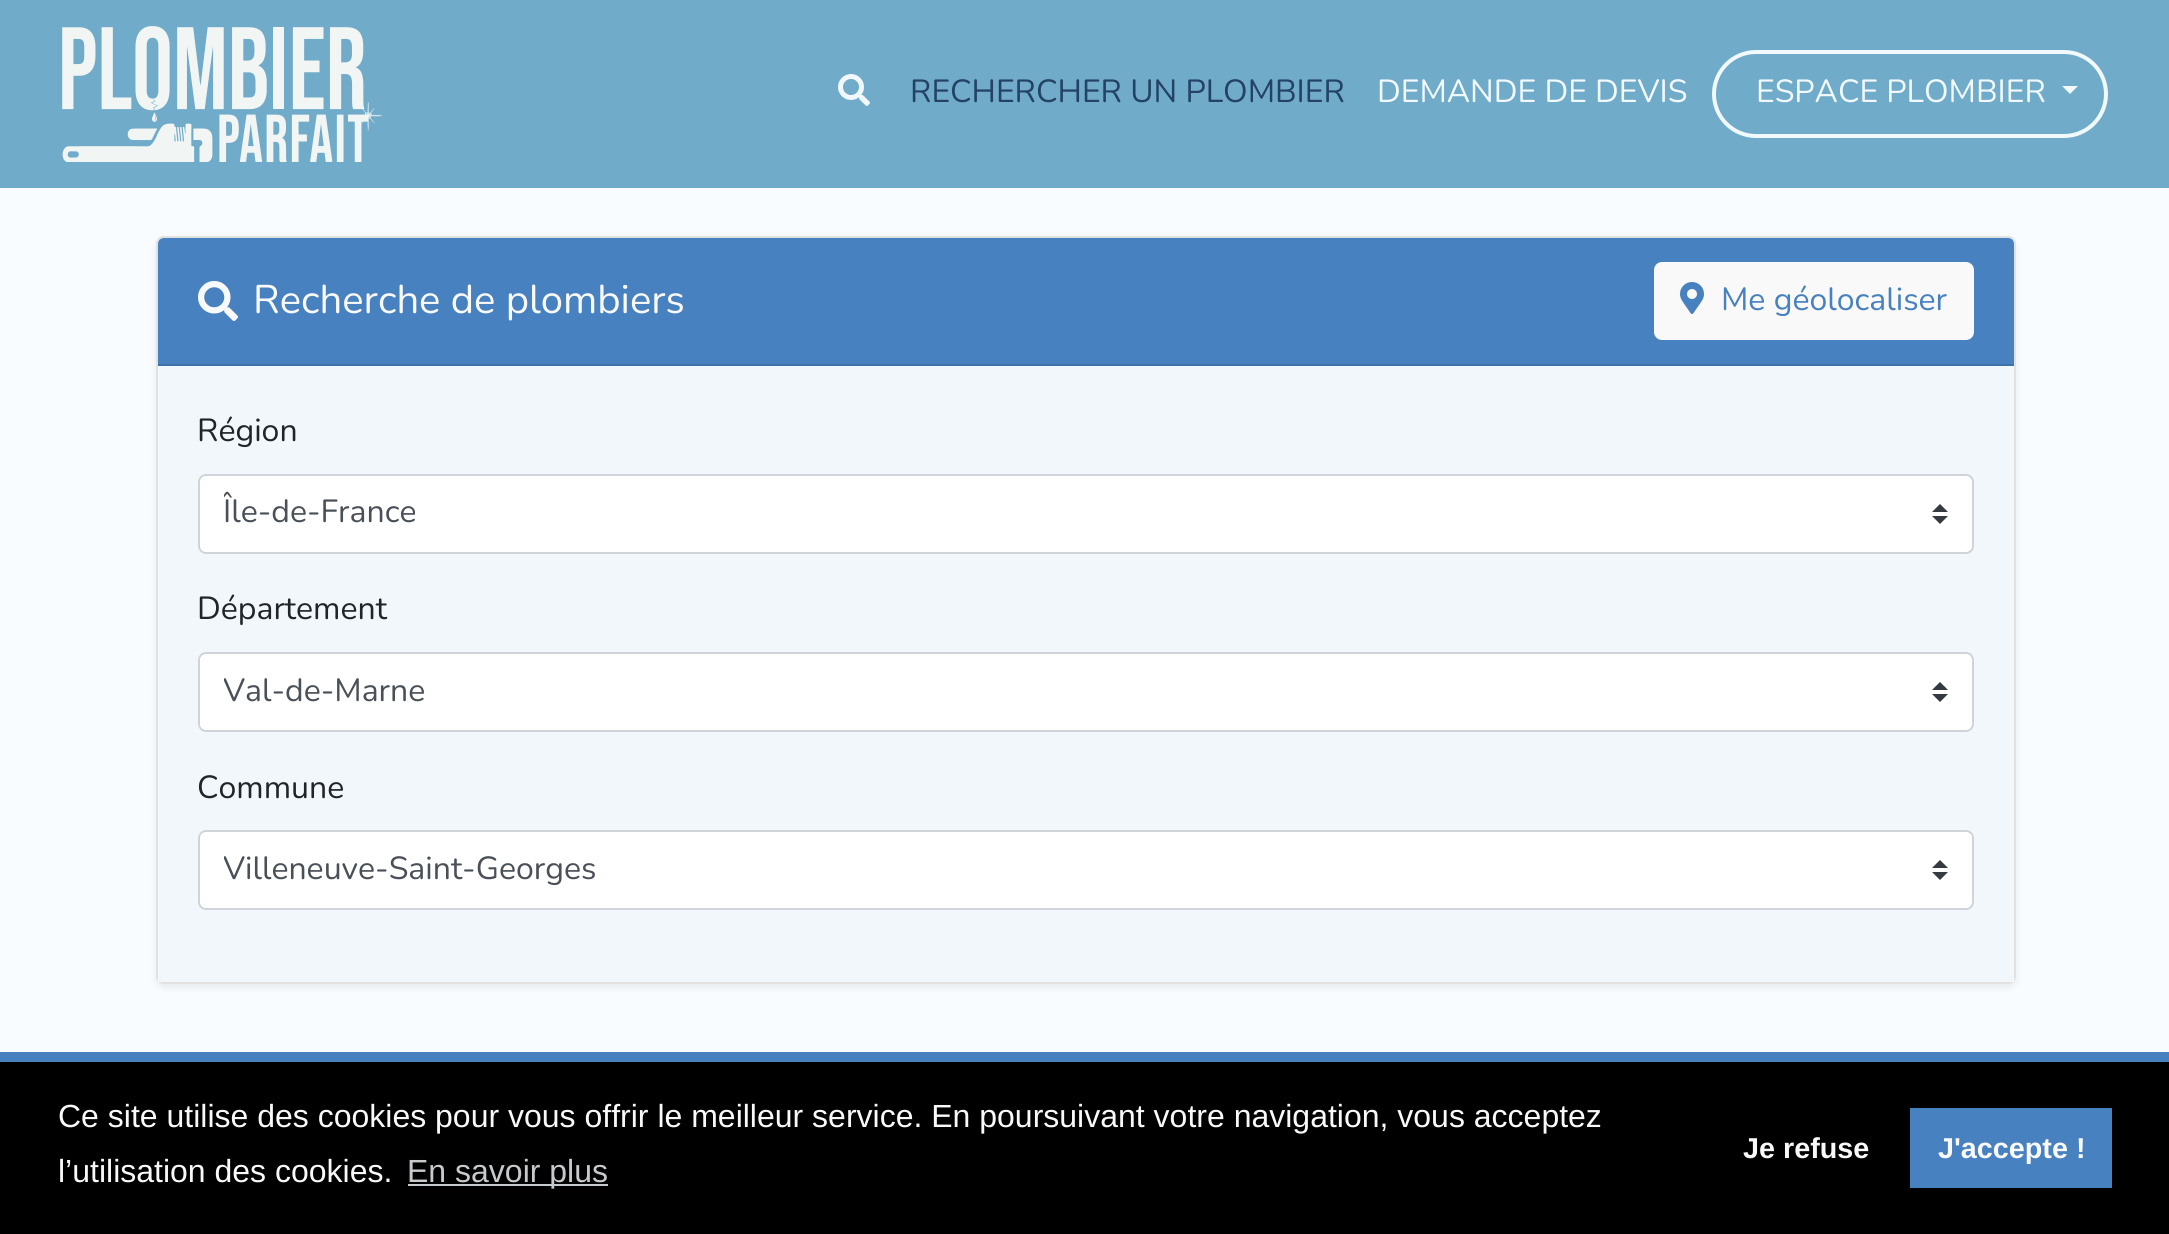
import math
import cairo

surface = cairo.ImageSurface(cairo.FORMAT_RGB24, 2169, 1234)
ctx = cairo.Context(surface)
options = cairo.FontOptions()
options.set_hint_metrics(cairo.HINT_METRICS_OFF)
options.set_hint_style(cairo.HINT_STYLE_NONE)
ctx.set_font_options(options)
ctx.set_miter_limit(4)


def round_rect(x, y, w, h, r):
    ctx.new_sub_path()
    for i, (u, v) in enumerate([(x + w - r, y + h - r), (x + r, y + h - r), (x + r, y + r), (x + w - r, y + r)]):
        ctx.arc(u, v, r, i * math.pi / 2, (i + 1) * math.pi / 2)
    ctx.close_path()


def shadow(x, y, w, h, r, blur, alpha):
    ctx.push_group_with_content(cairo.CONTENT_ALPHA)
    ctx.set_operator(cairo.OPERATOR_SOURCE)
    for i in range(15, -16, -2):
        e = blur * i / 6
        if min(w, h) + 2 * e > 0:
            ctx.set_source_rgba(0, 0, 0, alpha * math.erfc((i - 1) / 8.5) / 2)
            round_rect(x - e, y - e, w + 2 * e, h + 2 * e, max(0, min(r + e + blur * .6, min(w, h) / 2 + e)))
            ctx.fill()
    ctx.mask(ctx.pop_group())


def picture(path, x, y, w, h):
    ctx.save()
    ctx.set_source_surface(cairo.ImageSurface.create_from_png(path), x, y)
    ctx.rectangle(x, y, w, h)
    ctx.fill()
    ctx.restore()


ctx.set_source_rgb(0.973, 0.988, 1)
ctx.paint()
ctx.set_source_rgb(0.439, 0.671, 0.788)
ctx.rectangle(0, 0, 2169, 188)
ctx.fill()
picture("img1.png", 62, 26, 320, 136)
picture("img2.png", 838, 74, 32, 32)
ctx.select_font_face("Nunito ExtraLight")
ctx.set_font_size(32)
ctx.set_source_rgb(0.137, 0.259, 0.392)
ctx.move_to(910, 102)
ctx.show_text("RECHERCHER UN PLOMBIER")
ctx.set_source_rgb(0.945, 0.973, 0.988)
ctx.move_to(1377, 102)
ctx.show_text("DEMANDE DE DEVIS")
round_rect(1714, 52, 392, 84, 42)
ctx.set_line_width(4)
ctx.stroke()
ctx.move_to(1756, 102)
ctx.show_text("ESPACE PLOMBIER")
ctx.new_path()
ctx.move_to(2062, 86)
ctx.line_to(2078, 86)
ctx.line_to(2070, 94)
ctx.close_path()
ctx.fill()
ctx.set_source_rgb(0, 0, 0)
shadow(156, 240, 1860, 748, 8, 4, 0.07)
ctx.set_source_rgb(1, 1, 1)
round_rect(156, 236, 1860, 748, 8)
ctx.fill()
round_rect(157, 237, 1858, 746, 7)
ctx.set_source_rgba(0, 0, 0, 0.12)
ctx.set_line_width(2)
ctx.stroke()
ctx.set_source_rgb(0.278, 0.506, 0.749)
ctx.new_path()
ctx.move_to(164, 238)
ctx.line_to(2008, 238)
ctx.curve_to(2011.5, 238, 2014, 240.5, 2014, 244)
ctx.line_to(2014, 366)
ctx.line_to(158, 366)
ctx.line_to(158, 244)
ctx.curve_to(158, 240.5, 160.5, 238, 164, 238)
ctx.close_path()
ctx.fill()
ctx.set_source_rgb(0.243, 0.443, 0.655)
ctx.rectangle(158, 364, 1856, 2)
ctx.fill()
picture("img3.png", 198, 281, 40, 40)
ctx.set_font_size(40)
ctx.set_source_rgb(0.973, 0.976, 0.98)
ctx.move_to(253, 313)
ctx.show_text("Recherche de plombiers")
round_rect(1655, 263, 318, 76, 7)
ctx.fill_preserve()
ctx.stroke()
picture("img4.png", 1680, 282, 24, 32)
ctx.set_font_size(32)
ctx.set_source_rgb(0.278, 0.506, 0.749)
ctx.move_to(1721, 310)
ctx.show_text("Me géolocaliser")
ctx.set_source_rgb(0.945, 0.965, 0.98)
ctx.rectangle(158, 366, 1856, 616)
ctx.fill()
ctx.set_source_rgb(0.129, 0.145, 0.161)
ctx.move_to(197, 441)
ctx.show_text("Région")
ctx.set_source_rgb(1, 1, 1)
round_rect(198, 474, 1776, 80, 8)
ctx.fill()
ctx.set_source_rgb(0.204, 0.227, 0.251)
ctx.new_path()
ctx.move_to(1940, 504)
ctx.line_to(1932, 512)
ctx.line_to(1948, 512)
ctx.close_path()
ctx.move_to(1940, 524)
ctx.line_to(1932, 516)
ctx.line_to(1948, 516)
ctx.close_path()
ctx.fill()
round_rect(199, 475, 1774, 78, 7)
ctx.set_source_rgb(0.808, 0.831, 0.855)
ctx.stroke()
ctx.save()
ctx.rectangle(224, 488, 1692, 52)
ctx.clip()
ctx.set_source_rgb(0.286, 0.314, 0.341)
ctx.move_to(223, 522)
ctx.show_text("Île-de-France")
ctx.restore()
ctx.set_source_rgb(0.129, 0.145, 0.161)
ctx.move_to(197, 619)
ctx.show_text("Département")
ctx.set_source_rgb(1, 1, 1)
round_rect(198, 652, 1776, 80, 8)
ctx.fill()
ctx.set_source_rgb(0.204, 0.227, 0.251)
ctx.new_path()
ctx.move_to(1940, 682)
ctx.line_to(1932, 690)
ctx.line_to(1948, 690)
ctx.close_path()
ctx.move_to(1940, 702)
ctx.line_to(1932, 694)
ctx.line_to(1948, 694)
ctx.close_path()
ctx.fill()
round_rect(199, 653, 1774, 78, 7)
ctx.set_source_rgb(0.808, 0.831, 0.855)
ctx.stroke()
ctx.save()
ctx.rectangle(224, 666, 1692, 52)
ctx.clip()
ctx.set_source_rgb(0.286, 0.314, 0.341)
ctx.move_to(223, 701)
ctx.show_text("Val-de-Marne")
ctx.restore()
ctx.set_source_rgb(0.129, 0.145, 0.161)
ctx.move_to(197, 798)
ctx.show_text("Commune")
ctx.set_source_rgb(1, 1, 1)
round_rect(198, 830, 1776, 80, 8)
ctx.fill()
ctx.set_source_rgb(0.204, 0.227, 0.251)
ctx.new_path()
ctx.move_to(1940, 860)
ctx.line_to(1932, 868)
ctx.line_to(1948, 868)
ctx.close_path()
ctx.move_to(1940, 880)
ctx.line_to(1932, 872)
ctx.line_to(1948, 872)
ctx.close_path()
ctx.fill()
round_rect(199, 831, 1774, 78, 7)
ctx.set_source_rgb(0.808, 0.831, 0.855)
ctx.stroke()
ctx.save()
ctx.rectangle(224, 844, 1692, 52)
ctx.clip()
ctx.set_source_rgb(0.286, 0.314, 0.341)
ctx.move_to(223, 879)
ctx.show_text("Villeneuve-Saint-Georges")
ctx.restore()
ctx.set_source_rgb(0.278, 0.506, 0.749)
ctx.rectangle(0, 1052, 2169, 10)
ctx.fill()
ctx.set_source_rgb(0, 0, 0)
ctx.rectangle(0, 1062, 2169, 172)
ctx.fill()
ctx.select_font_face("Liberation Sans")
ctx.set_source_rgb(0.973, 0.976, 0.98)
ctx.move_to(58, 1127)
ctx.show_text("Ce site utilise des cookies pour vous offrir le meilleur service. En poursuivant votre navigation, vous acceptez")
ctx.move_to(58, 1182)
ctx.show_text("l’utilisation des cookies.")
ctx.set_source_rgb(0.776, 0.792, 0.8)
ctx.rectangle(408, 1184, 200, 2)
ctx.fill()
ctx.move_to(407, 1182)
ctx.show_text("En savoir plus")
ctx.select_font_face("Liberation Sans", cairo.FONT_SLANT_NORMAL, cairo.FONT_WEIGHT_BOLD)
ctx.set_font_size(28.75)
ctx.set_source_rgb(0.973, 0.976, 0.98)
ctx.move_to(1743, 1158)
ctx.show_text("Je refuse")
ctx.set_source_rgb(0.278, 0.506, 0.749)
ctx.rectangle(1910, 1108, 202, 80)
ctx.fill()
ctx.set_source_rgb(0.973, 0.976, 0.98)
ctx.move_to(1938, 1158)
ctx.show_text("J'accepte !")
surface.write_to_png("page.png")
